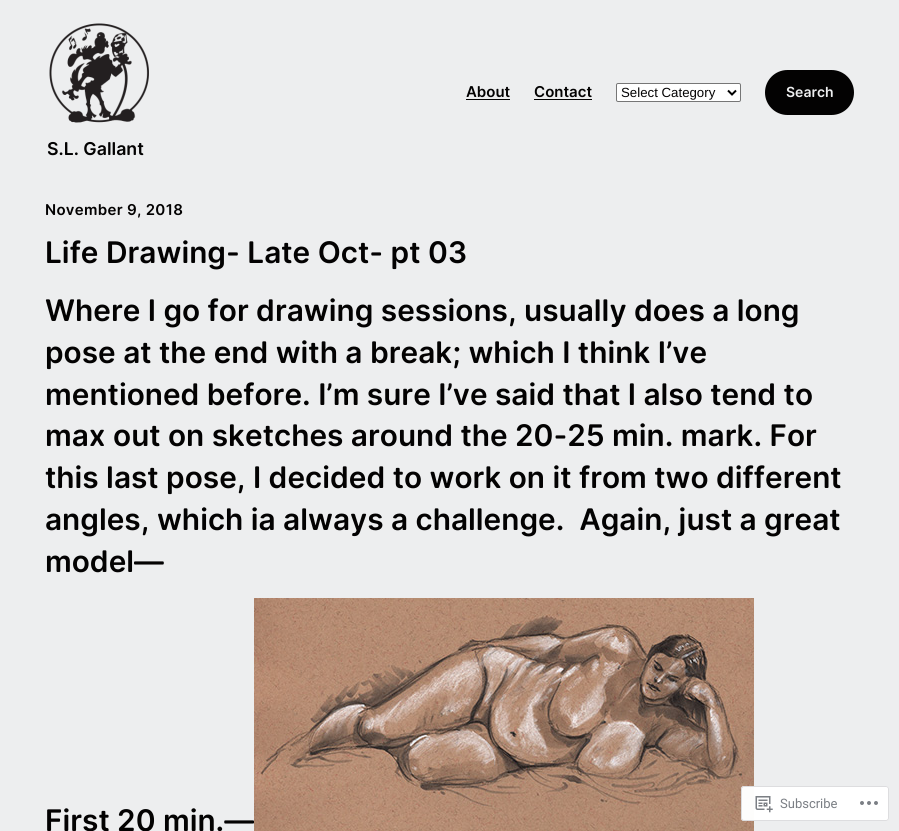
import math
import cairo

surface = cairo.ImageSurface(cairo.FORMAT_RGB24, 899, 831)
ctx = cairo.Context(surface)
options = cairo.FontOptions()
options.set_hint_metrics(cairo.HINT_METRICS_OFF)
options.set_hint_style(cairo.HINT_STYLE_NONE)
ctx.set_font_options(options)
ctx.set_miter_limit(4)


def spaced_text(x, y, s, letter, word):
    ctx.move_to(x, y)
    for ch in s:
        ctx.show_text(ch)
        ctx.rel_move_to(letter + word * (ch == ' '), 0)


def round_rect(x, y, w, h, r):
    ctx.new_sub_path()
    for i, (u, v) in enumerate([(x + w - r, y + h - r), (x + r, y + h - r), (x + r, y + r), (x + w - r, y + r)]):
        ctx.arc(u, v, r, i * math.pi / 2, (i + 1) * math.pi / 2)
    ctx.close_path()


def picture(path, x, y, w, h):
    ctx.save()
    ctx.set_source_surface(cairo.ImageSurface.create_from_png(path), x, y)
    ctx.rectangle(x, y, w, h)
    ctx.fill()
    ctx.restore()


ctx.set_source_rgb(0.929, 0.933, 0.937)
ctx.paint()
ctx.select_font_face("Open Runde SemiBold")
ctx.set_font_size(15)
ctx.set_source_rgb(0.012, 0.008, 0.008)
ctx.move_to(466, 97)
ctx.show_text("About")
ctx.rectangle(466, 99, 44, 1)
ctx.fill()
ctx.move_to(534, 97)
ctx.show_text("Contact")
ctx.rectangle(534, 99, 58, 1)
ctx.fill()
ctx.set_source_rgb(1, 1, 1)
round_rect(616.5, 83.5, 124, 18, 1.5)
ctx.fill_preserve()
ctx.set_source_rgb(0.463, 0.463, 0.463)
ctx.set_line_width(1)
ctx.stroke()
ctx.new_path()
ctx.move_to(728, 90.5)
ctx.line_to(732, 94.5)
ctx.line_to(736, 90.5)
ctx.set_source_rgb(0, 0, 0)
ctx.set_line_width(2)
ctx.stroke()
ctx.select_font_face("Liberation Sans")
ctx.set_font_size(13.25)
ctx.set_source_rgb(0.012, 0.008, 0.008)
ctx.move_to(621, 97)
ctx.show_text("Select Category")
round_rect(765, 70, 89, 45, 22.5)
ctx.fill()
ctx.select_font_face("Open Runde SemiBold")
ctx.set_font_size(14)
ctx.set_source_rgb(0.929, 0.933, 0.937)
ctx.move_to(786, 97)
ctx.show_text("Search")
picture("img1.png", 49, 23, 100, 100)
ctx.set_font_size(17.75)
ctx.set_source_rgb(0.012, 0.008, 0.008)
ctx.move_to(47, 155)
ctx.show_text("S.L. Gallant")
ctx.set_font_size(15)
spaced_text(45, 215, "November 9, 2018", 0.3, 0)
ctx.set_font_size(29.8)
ctx.move_to(45, 263)
ctx.show_text("Life Drawing- Late Oct- pt 03")
ctx.move_to(45, 321)
ctx.show_text("Where I go for drawing sessions, usually does a long")
ctx.move_to(45, 363)
ctx.show_text("pose at the end with a break; which I think I’ve")
ctx.move_to(45, 405)
ctx.show_text("mentioned before. I’m sure I’ve said that I also tend to")
ctx.move_to(45, 446)
ctx.show_text("max out on sketches around the 20-25 min. mark. For")
ctx.move_to(45, 488)
ctx.show_text("this last pose, I decided to work on it from two different")
ctx.move_to(45, 530)
ctx.show_text("angles, which ia always a challenge.  Again, just a great")
ctx.move_to(45, 572)
ctx.show_text("model—")
ctx.move_to(45, 831)
ctx.show_text("First 20 min.—")
picture("img2.png", 254, 598, 500, 233)
ctx.set_source_rgba(1, 1, 1, 0.98)
round_rect(741, 786, 148, 35, 3)
ctx.fill()
round_rect(741.5, 786.5, 147, 34, 2.5)
ctx.set_source_rgba(0.863, 0.863, 0.871, 0.98)
ctx.set_line_width(1)
ctx.stroke()
picture("img3.png", 755, 796, 18, 17)
ctx.select_font_face("Roboto")
ctx.set_font_size(13)
ctx.set_source_rgb(0.478, 0.494, 0.518)
ctx.move_to(780, 808)
ctx.show_text("Subscribe")
picture("img4.png", 860, 801, 18, 4)
surface.write_to_png("page.png")
